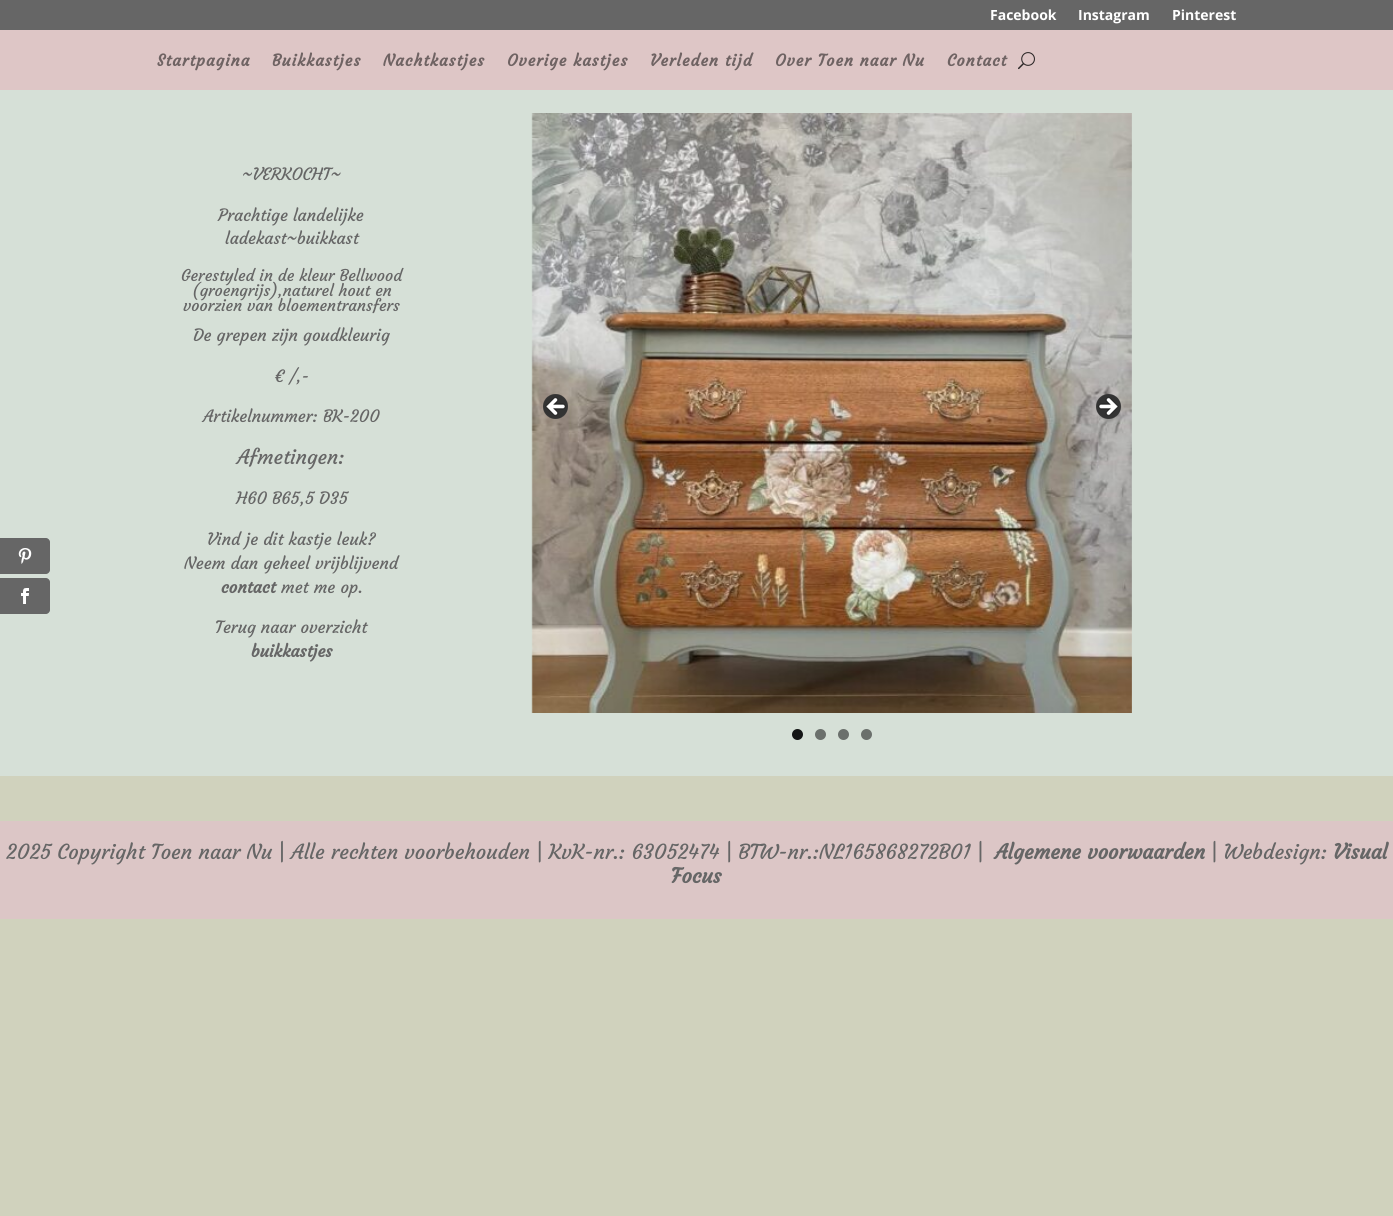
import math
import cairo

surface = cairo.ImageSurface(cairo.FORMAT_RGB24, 1393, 1216)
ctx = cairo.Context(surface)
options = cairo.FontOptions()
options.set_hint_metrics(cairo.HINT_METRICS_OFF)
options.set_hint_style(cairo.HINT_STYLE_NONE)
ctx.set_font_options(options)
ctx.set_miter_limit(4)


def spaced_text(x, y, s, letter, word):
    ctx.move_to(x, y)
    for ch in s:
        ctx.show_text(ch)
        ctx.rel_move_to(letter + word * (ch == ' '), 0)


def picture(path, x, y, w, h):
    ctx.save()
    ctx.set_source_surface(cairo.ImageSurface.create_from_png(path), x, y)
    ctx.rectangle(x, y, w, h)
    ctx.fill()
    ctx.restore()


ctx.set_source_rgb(0.816, 0.824, 0.741)
ctx.paint()
ctx.set_source_rgb(0.4, 0.4, 0.4)
ctx.rectangle(0, 0, 1393, 30)
ctx.fill()
ctx.select_font_face("Open Sans", cairo.FONT_SLANT_NORMAL, cairo.FONT_WEIGHT_BOLD)
ctx.set_font_size(14)
ctx.set_source_rgb(1, 1, 1)
ctx.move_to(990, 20)
ctx.show_text("Facebook")
ctx.move_to(1078, 20)
ctx.show_text("Instagram")
ctx.move_to(1172, 20)
ctx.show_text("Pinterest")
ctx.set_source_rgb(0.871, 0.776, 0.776)
ctx.rectangle(0, 30, 1393, 60)
ctx.fill()
ctx.select_font_face("Courgette", cairo.FONT_SLANT_NORMAL, cairo.FONT_WEIGHT_BOLD)
ctx.set_font_size(16)
ctx.set_source_rgb(0.435, 0.388, 0.388)
spaced_text(157, 66, "Startpagina", 1, 0)
spaced_text(272, 66, "Buikkastjes", 1, 0)
spaced_text(383, 66, "Nachtkastjes", 1, 0)
spaced_text(507, 66, "Overige kastjes", 1, 0)
spaced_text(650, 66, "Verleden tijd", 1, 0)
spaced_text(775, 66, "Over Toen naar Nu", 1, 0)
spaced_text(947, 66, "Contact", 1, 0)
picture("img1.png", 1018, 52, 17, 18)
ctx.set_source_rgb(0.839, 0.878, 0.843)
ctx.rectangle(0, 90, 1393, 686)
ctx.fill()
ctx.select_font_face("Courgette")
ctx.set_font_size(16.75)
ctx.set_source_rgb(0.4, 0.4, 0.4)
ctx.move_to(242, 180)
ctx.show_text("~VERKOCHT~")
ctx.move_to(218, 221)
ctx.show_text("Prachtige landelijke")
ctx.move_to(225, 244)
ctx.show_text("ladekast~buikkast")
ctx.set_font_size(16)
ctx.move_to(181, 281)
ctx.show_text("Gerestyled in de kleur Bellwood")
ctx.move_to(192, 296)
ctx.show_text("(groengrijs),naturel hout en")
ctx.move_to(183, 311)
ctx.show_text("voorzien van bloementransfers")
ctx.set_font_size(16.75)
ctx.move_to(193, 341)
ctx.show_text("De grepen zijn goudkleurig")
ctx.move_to(274, 382)
ctx.show_text("€ /,-")
ctx.move_to(203, 422)
ctx.show_text("Artikelnummer: BK-200")
ctx.set_font_size(20)
ctx.move_to(237, 464)
ctx.show_text("Afmetingen:")
ctx.set_font_size(16.75)
ctx.move_to(236, 504)
ctx.show_text("H60 B65,5 D35")
ctx.move_to(207, 545)
ctx.show_text("Vind je dit kastje leuk?")
ctx.move_to(184, 569)
ctx.show_text("Neem dan geheel vrijblijvend")
ctx.select_font_face("Courgette", cairo.FONT_SLANT_NORMAL, cairo.FONT_WEIGHT_BOLD)
ctx.move_to(221, 593)
ctx.show_text("contact")
ctx.select_font_face("Courgette")
ctx.move_to(281, 593)
ctx.show_text("met me op.")
ctx.move_to(215, 633)
ctx.show_text("Terug naar overzicht")
ctx.select_font_face("Courgette", cairo.FONT_SLANT_NORMAL, cairo.FONT_WEIGHT_BOLD)
ctx.move_to(251, 657)
ctx.show_text("buikkastjes")
picture("img2.png", 531, 113, 601, 600)
picture("img3.png", 543, 394, 25, 25)
picture("img4.png", 1096, 394, 25, 25)
ctx.set_source_rgb(0.082, 0.086, 0.086)
ctx.arc(797.5, 734.5, 5.5, 0, 2 * math.pi)
ctx.fill()
ctx.set_source_rgb(0.42, 0.439, 0.424)
ctx.arc(820.5, 734.5, 5.5, 0, 2 * math.pi)
ctx.fill()
ctx.arc(843.5, 734.5, 5.5, 0, 2 * math.pi)
ctx.fill()
ctx.arc(866.5, 734.5, 5.5, 0, 2 * math.pi)
ctx.fill()
ctx.set_source_rgb(0.863, 0.776, 0.776)
ctx.rectangle(0, 821, 1393, 98)
ctx.fill()
ctx.select_font_face("Courgette")
ctx.set_font_size(20.4)
ctx.set_source_rgb(0.4, 0.4, 0.4)
ctx.move_to(6, 859)
ctx.show_text("2025 Copyright Toen naar Nu | Alle rechten voorbehouden | KvK-nr.: 63052474 | BTW-nr.:NL165868272B01 |")
ctx.select_font_face("Courgette", cairo.FONT_SLANT_NORMAL, cairo.FONT_WEIGHT_BOLD)
ctx.move_to(995, 859)
ctx.show_text("Algemene voorwaarden")
ctx.select_font_face("Courgette")
ctx.move_to(1211, 859)
ctx.show_text("| Webdesign:")
ctx.select_font_face("Courgette", cairo.FONT_SLANT_NORMAL, cairo.FONT_WEIGHT_BOLD)
ctx.move_to(1333, 859)
ctx.show_text("Visual")
ctx.move_to(671, 883)
ctx.show_text("Focus")
ctx.new_path()
ctx.move_to(0, 538)
ctx.line_to(46, 538)
ctx.curve_to(48, 538, 50, 540, 50, 542)
ctx.line_to(50, 570)
ctx.curve_to(50, 572, 48, 574, 46, 574)
ctx.line_to(0, 574)
ctx.close_path()
ctx.fill()
picture("img5.png", 18, 548, 14, 16)
ctx.new_path()
ctx.move_to(0, 578)
ctx.line_to(46, 578)
ctx.curve_to(48, 578, 50, 580, 50, 582)
ctx.line_to(50, 610)
ctx.curve_to(50, 612, 48, 614, 46, 614)
ctx.line_to(0, 614)
ctx.close_path()
ctx.fill()
picture("img6.png", 21, 588, 8, 16)
surface.write_to_png("page.png")
